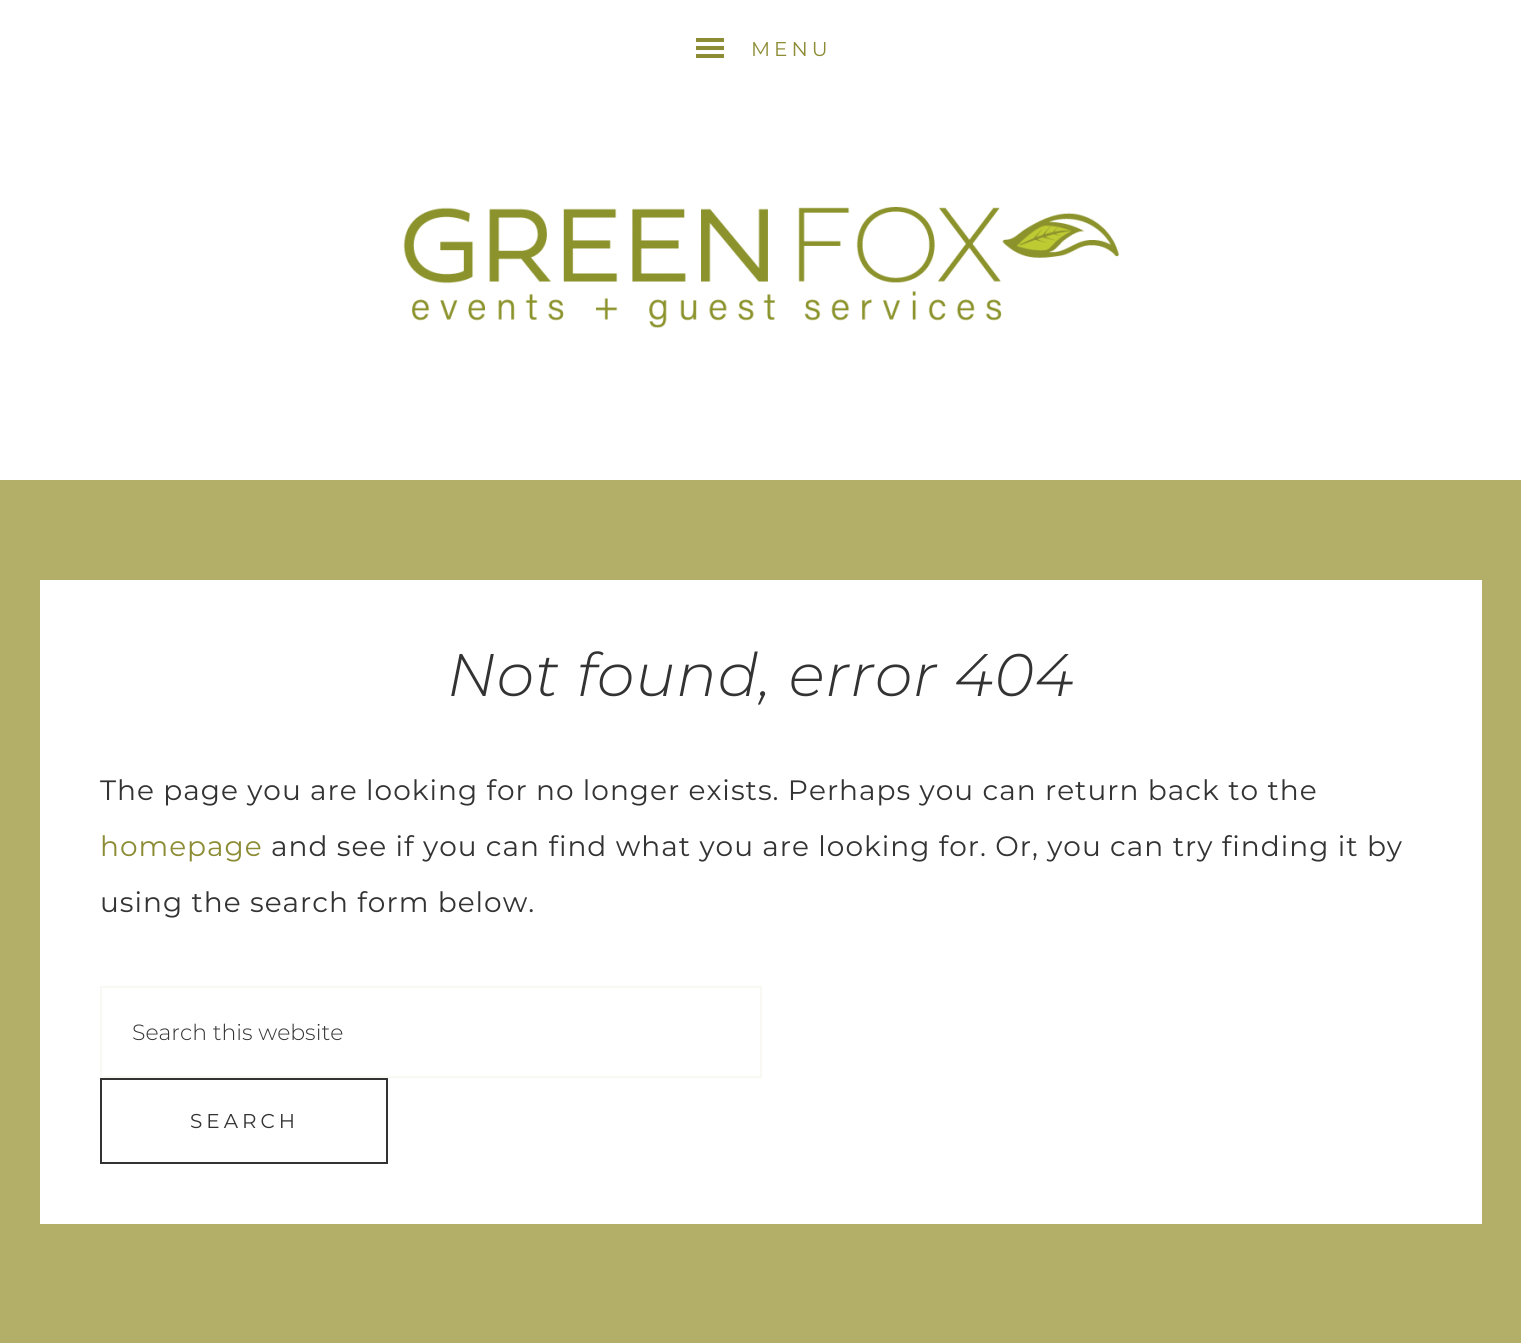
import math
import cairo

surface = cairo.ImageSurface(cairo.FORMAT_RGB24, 1521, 1343)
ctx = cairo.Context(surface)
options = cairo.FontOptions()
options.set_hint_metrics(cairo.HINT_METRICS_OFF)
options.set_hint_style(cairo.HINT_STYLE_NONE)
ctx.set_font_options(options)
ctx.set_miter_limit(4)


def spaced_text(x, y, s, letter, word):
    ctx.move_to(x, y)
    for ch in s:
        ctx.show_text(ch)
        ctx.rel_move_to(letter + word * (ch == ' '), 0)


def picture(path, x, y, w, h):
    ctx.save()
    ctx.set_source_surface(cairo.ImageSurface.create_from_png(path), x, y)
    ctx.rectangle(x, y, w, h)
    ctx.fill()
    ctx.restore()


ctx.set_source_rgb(0.706, 0.686, 0.408)
ctx.paint()
ctx.set_source_rgb(1, 1, 1)
ctx.rectangle(0, 0, 1521, 480)
ctx.fill()
picture("img1.png", 403, 206, 716, 123)
picture("img2.png", 696, 38, 28, 20)
ctx.select_font_face("Montserrat")
ctx.set_font_size(20)
ctx.set_source_rgb(0.549, 0.549, 0.208)
spaced_text(751, 56, "MENU", 4, 0)
ctx.set_source_rgb(1, 1, 1)
ctx.rectangle(40, 580, 1442, 644)
ctx.fill()
ctx.select_font_face("Montserrat Light", cairo.FONT_SLANT_ITALIC)
ctx.set_font_size(60)
ctx.set_source_rgb(0.2, 0.2, 0.2)
spaced_text(447, 696, "Not found, error 404", 1, 0)
ctx.select_font_face("Montserrat")
ctx.set_font_size(28)
spaced_text(100, 800, "The page you are looking for no longer exists. Perhaps you can return back to the", 1, 0)
ctx.set_source_rgb(0.549, 0.549, 0.208)
spaced_text(100, 856, "homepage", 1, 0)
ctx.set_source_rgb(0.2, 0.2, 0.2)
spaced_text(271, 856, "and see if you can find what you are looking for. Or, you can try finding it by", 1, 0)
spaced_text(100, 912, "using the search form below.", 1, 0)
ctx.rectangle(101, 987, 660, 90)
ctx.set_source_rgb(0.98, 0.969, 0.949)
ctx.stroke()
ctx.select_font_face("Montserrat Light")
ctx.set_font_size(22)
ctx.set_source_rgb(0.2, 0.2, 0.2)
ctx.move_to(132, 1040)
ctx.show_text("Search this website")
ctx.rectangle(101, 1079, 286, 84)
ctx.stroke()
ctx.select_font_face("Montserrat")
ctx.set_font_size(20)
spaced_text(190, 1128, "SEARCH", 4, 0)
surface.write_to_png("page.png")
